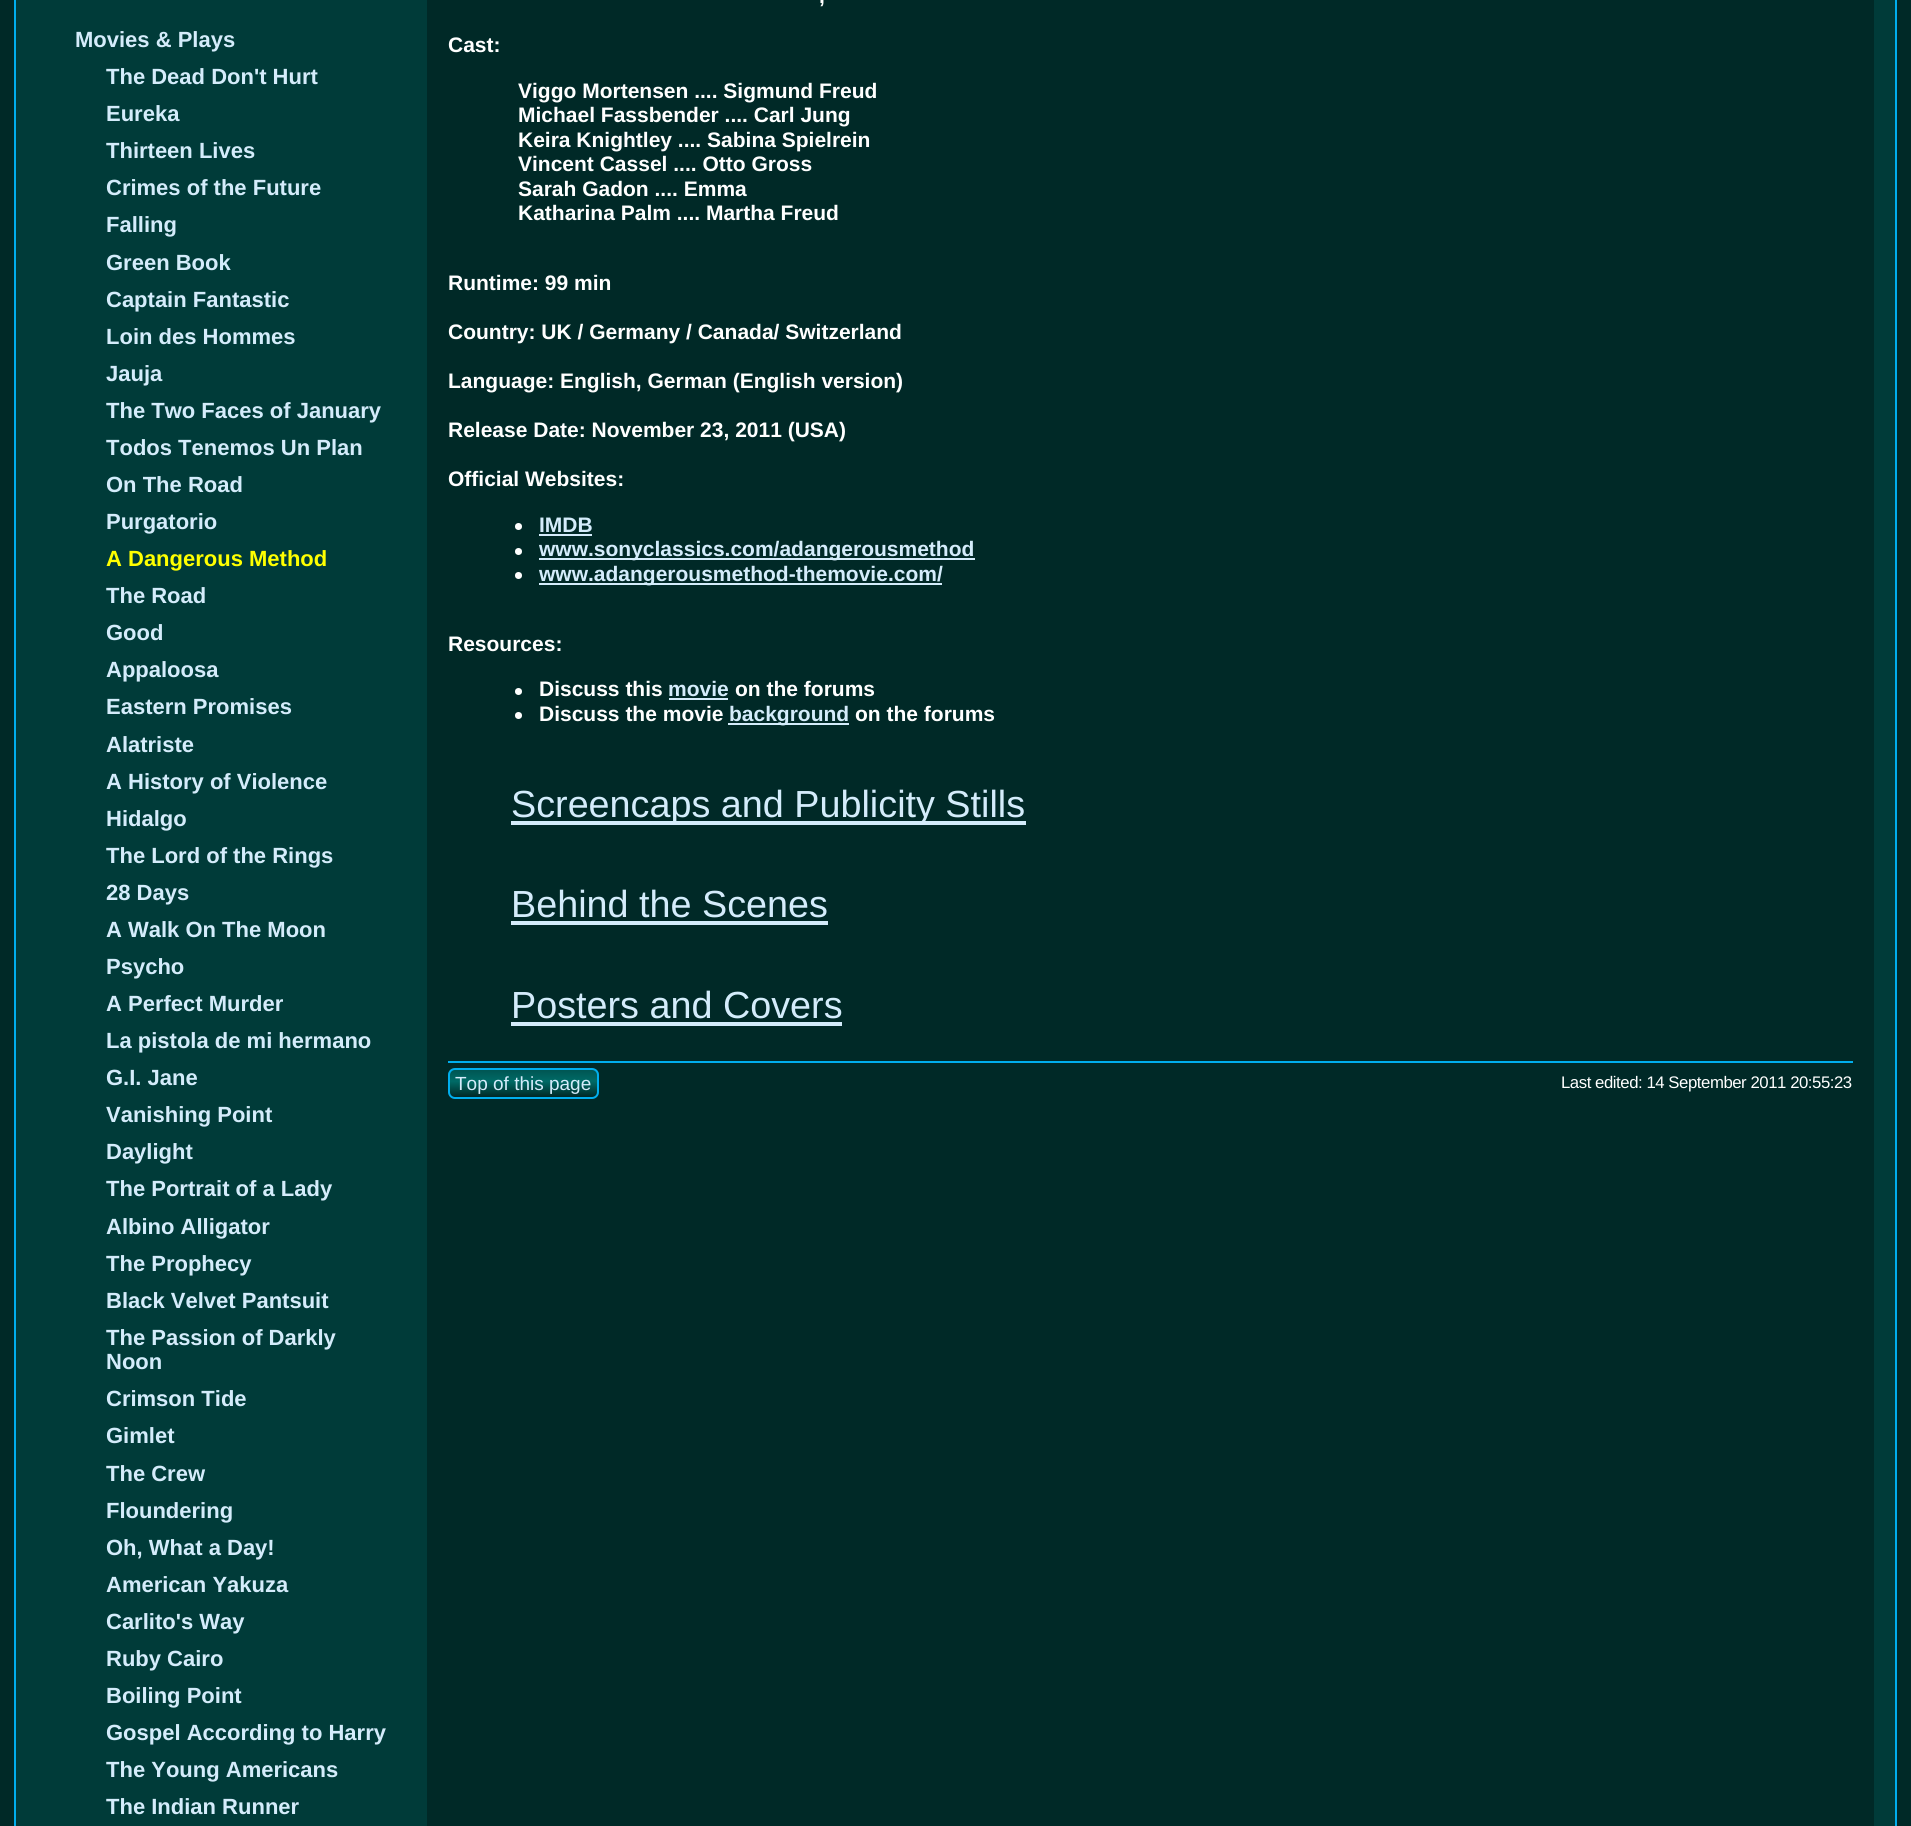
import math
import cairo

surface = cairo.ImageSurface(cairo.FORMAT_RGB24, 1911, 1826)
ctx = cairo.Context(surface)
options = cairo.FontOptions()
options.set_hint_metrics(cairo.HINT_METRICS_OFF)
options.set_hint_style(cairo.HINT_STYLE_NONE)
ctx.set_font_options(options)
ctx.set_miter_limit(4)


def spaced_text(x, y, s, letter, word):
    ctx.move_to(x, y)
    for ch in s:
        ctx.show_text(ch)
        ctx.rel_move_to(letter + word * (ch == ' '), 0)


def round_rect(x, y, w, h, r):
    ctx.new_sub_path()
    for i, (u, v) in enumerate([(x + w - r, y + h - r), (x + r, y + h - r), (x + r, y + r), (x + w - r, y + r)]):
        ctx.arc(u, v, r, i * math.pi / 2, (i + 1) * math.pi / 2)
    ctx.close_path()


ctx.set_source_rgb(0, 0.161, 0.153)
ctx.paint()
ctx.set_source_rgb(0, 0.231, 0.224)
ctx.rectangle(15, -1, 1881, 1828)
ctx.fill_preserve()
ctx.set_source_rgb(0, 0.682, 0.929)
ctx.stroke()
ctx.select_font_face("Liberation Sans", cairo.FONT_SLANT_NORMAL, cairo.FONT_WEIGHT_BOLD)
ctx.set_font_size(22)
ctx.set_source_rgb(0.831, 0.925, 0.984)
ctx.move_to(75, 47)
ctx.show_text("Movies & Plays")
ctx.move_to(106, 84)
ctx.show_text("The Dead Don't Hurt")
ctx.move_to(106, 121)
ctx.show_text("Eureka")
ctx.move_to(106, 158)
ctx.show_text("Thirteen Lives")
ctx.move_to(106, 195)
ctx.show_text("Crimes of the Future")
ctx.move_to(106, 232)
ctx.show_text("Falling")
ctx.move_to(106, 270)
ctx.show_text("Green Book")
ctx.move_to(106, 307)
ctx.show_text("Captain Fantastic")
ctx.move_to(106, 344)
ctx.show_text("Loin des Hommes")
ctx.move_to(106, 381)
ctx.show_text("Jauja")
ctx.move_to(106, 418)
ctx.show_text("The Two Faces of January")
ctx.move_to(106, 455)
ctx.show_text("Todos Tenemos Un Plan")
ctx.move_to(106, 492)
ctx.show_text("On The Road")
ctx.move_to(106, 529)
ctx.show_text("Purgatorio")
ctx.set_source_rgb(1, 1, 0)
ctx.move_to(106, 566)
ctx.show_text("A Dangerous Method")
ctx.set_source_rgb(0.831, 0.925, 0.984)
ctx.move_to(106, 603)
ctx.show_text("The Road")
ctx.move_to(106, 640)
ctx.show_text("Good")
ctx.move_to(106, 677)
ctx.show_text("Appaloosa")
ctx.move_to(106, 714)
ctx.show_text("Eastern Promises")
ctx.move_to(106, 752)
ctx.show_text("Alatriste")
ctx.move_to(106, 789)
ctx.show_text("A History of Violence")
ctx.move_to(106, 826)
ctx.show_text("Hidalgo")
ctx.move_to(106, 863)
ctx.show_text("The Lord of the Rings")
ctx.move_to(106, 900)
ctx.show_text("28 Days")
ctx.move_to(106, 937)
ctx.show_text("A Walk On The Moon")
ctx.move_to(106, 974)
ctx.show_text("Psycho")
ctx.move_to(106, 1011)
ctx.show_text("A Perfect Murder")
ctx.move_to(106, 1048)
ctx.show_text("La pistola de mi hermano")
ctx.move_to(106, 1085)
ctx.show_text("G.I. Jane")
ctx.move_to(106, 1122)
ctx.show_text("Vanishing Point")
ctx.move_to(106, 1159)
ctx.show_text("Daylight")
ctx.move_to(106, 1196)
ctx.show_text("The Portrait of a Lady")
ctx.move_to(106, 1234)
ctx.show_text("Albino Alligator")
ctx.move_to(106, 1271)
ctx.show_text("The Prophecy")
ctx.move_to(106, 1308)
ctx.show_text("Black Velvet Pantsuit")
ctx.move_to(106, 1345)
ctx.show_text("The Passion of Darkly")
ctx.move_to(106, 1369)
ctx.show_text("Noon")
ctx.move_to(106, 1406)
ctx.show_text("Crimson Tide")
ctx.move_to(106, 1443)
ctx.show_text("Gimlet")
ctx.move_to(106, 1481)
ctx.show_text("The Crew")
ctx.move_to(106, 1518)
ctx.show_text("Floundering")
ctx.move_to(106, 1555)
ctx.show_text("Oh, What a Day!")
ctx.move_to(106, 1592)
ctx.show_text("American Yakuza")
ctx.move_to(106, 1629)
ctx.show_text("Carlito's Way")
ctx.move_to(106, 1666)
ctx.show_text("Ruby Cairo")
ctx.move_to(106, 1703)
ctx.show_text("Boiling Point")
ctx.move_to(106, 1740)
ctx.show_text("Gospel According to Harry")
ctx.move_to(106, 1777)
ctx.show_text("The Young Americans")
ctx.move_to(106, 1814)
ctx.show_text("The Indian Runner")
ctx.set_source_rgb(0, 0.161, 0.153)
ctx.rectangle(427, 0, 1447, 1826)
ctx.fill()
ctx.set_font_size(21)
ctx.set_source_rgb(1, 1, 1)
ctx.move_to(819, 3)
ctx.show_text(",")
ctx.move_to(448, 52)
ctx.show_text("Cast:")
ctx.move_to(518, 98)
ctx.show_text("Viggo Mortensen .... Sigmund Freud")
ctx.move_to(518, 122)
ctx.show_text("Michael Fassbender .... Carl Jung")
ctx.move_to(518, 147)
ctx.show_text("Keira Knightley .... Sabina Spielrein")
ctx.move_to(518, 171)
ctx.show_text("Vincent Cassel .... Otto Gross")
ctx.move_to(518, 196)
ctx.show_text("Sarah Gadon .... Emma")
ctx.move_to(518, 220)
ctx.show_text("Katharina Palm .... Martha Freud")
ctx.move_to(448, 290)
ctx.show_text("Runtime: 99 min")
ctx.move_to(448, 339)
ctx.show_text("Country: UK / Germany / Canada/ Switzerland")
ctx.move_to(448, 388)
ctx.show_text("Language: English, German (English version)")
ctx.move_to(448, 437)
ctx.show_text("Release Date: November 23, 2011 (USA)")
ctx.move_to(448, 486)
ctx.show_text("Official Websites:")
ctx.new_path()
ctx.arc(518.5, 526.5, 3.5, 0, 2 * math.pi)
ctx.fill()
ctx.set_source_rgb(0.831, 0.925, 0.984)
ctx.move_to(539, 532)
ctx.show_text("IMDB")
ctx.rectangle(539, 534, 53, 2)
ctx.fill()
ctx.set_source_rgb(1, 1, 1)
ctx.arc(518.5, 551.5, 3.5, 0, 2 * math.pi)
ctx.fill()
ctx.set_source_rgb(0.831, 0.925, 0.984)
ctx.rectangle(539, 558, 436, 2)
ctx.fill()
ctx.move_to(539, 556)
ctx.show_text("www.sonyclassics.com/adangerousmethod")
ctx.set_source_rgb(1, 1, 1)
ctx.new_path()
ctx.arc(518.5, 575.5, 3.5, 0, 2 * math.pi)
ctx.fill()
ctx.set_source_rgb(0.831, 0.925, 0.984)
ctx.rectangle(539, 583, 403, 2)
ctx.fill()
ctx.move_to(539, 581)
ctx.show_text("www.adangerousmethod-themovie.com/")
ctx.set_source_rgb(1, 1, 1)
ctx.move_to(448, 651)
ctx.show_text("Resources:")
ctx.new_path()
ctx.arc(518.5, 691.5, 3.5, 0, 2 * math.pi)
ctx.fill()
ctx.move_to(539, 696)
ctx.show_text("Discuss this")
ctx.set_source_rgb(0.831, 0.925, 0.984)
ctx.move_to(668, 696)
ctx.show_text("movie")
ctx.rectangle(669, 698, 59, 2)
ctx.fill()
ctx.set_source_rgb(1, 1, 1)
ctx.move_to(735, 696)
ctx.show_text("on the forums")
ctx.new_path()
ctx.arc(518.5, 715.5, 3.5, 0, 2 * math.pi)
ctx.fill()
ctx.move_to(539, 721)
ctx.show_text("Discuss the movie")
ctx.set_source_rgb(0.831, 0.925, 0.984)
ctx.rectangle(728, 723, 121, 2)
ctx.fill()
ctx.move_to(729, 721)
ctx.show_text("background")
ctx.set_source_rgb(1, 1, 1)
ctx.move_to(855, 721)
ctx.show_text("on the forums")
ctx.set_source_rgb(0.831, 0.925, 0.984)
ctx.rectangle(511, 821, 515, 4)
ctx.fill()
ctx.select_font_face("Liberation Sans")
ctx.set_font_size(37.75)
ctx.move_to(511, 817)
ctx.show_text("Screencaps and Publicity Stills")
ctx.move_to(511, 917)
ctx.show_text("Behind the Scenes")
ctx.rectangle(511, 921, 317, 4)
ctx.fill()
ctx.move_to(511, 1018)
ctx.show_text("Posters and Covers")
ctx.rectangle(511, 1022, 331, 4)
ctx.fill()
ctx.set_source_rgb(0, 0.682, 0.929)
ctx.rectangle(448, 1061, 1405, 2)
ctx.fill()
ctx.save()
round_rect(448, 1068, 151, 31, 7)
ctx.clip()
gradient = cairo.LinearGradient(523, 1069, 523, 1097)
gradient.add_color_stop_rgba(0, 0, 0.329, 0.318, 1)
gradient.add_color_stop_rgba(0.44, 0, 0.416, 0.4, 1)
gradient.add_color_stop_rgba(1, 0, 0.161, 0.153, 1)
ctx.set_source(gradient)
ctx.rectangle(448, 1069, 151, 28)
ctx.fill()
ctx.restore()
round_rect(449, 1069, 149, 29, 6)
ctx.stroke()
ctx.set_font_size(19)
ctx.set_source_rgb(0.831, 0.925, 0.984)
ctx.move_to(455, 1090)
ctx.show_text("Top of this page")
ctx.set_font_size(16.75)
ctx.set_source_rgb(1, 1, 1)
spaced_text(1561, 1088, "Last edited: 14 September 2011 20:55:23", -0.45, 0)
surface.write_to_png("page.png")
